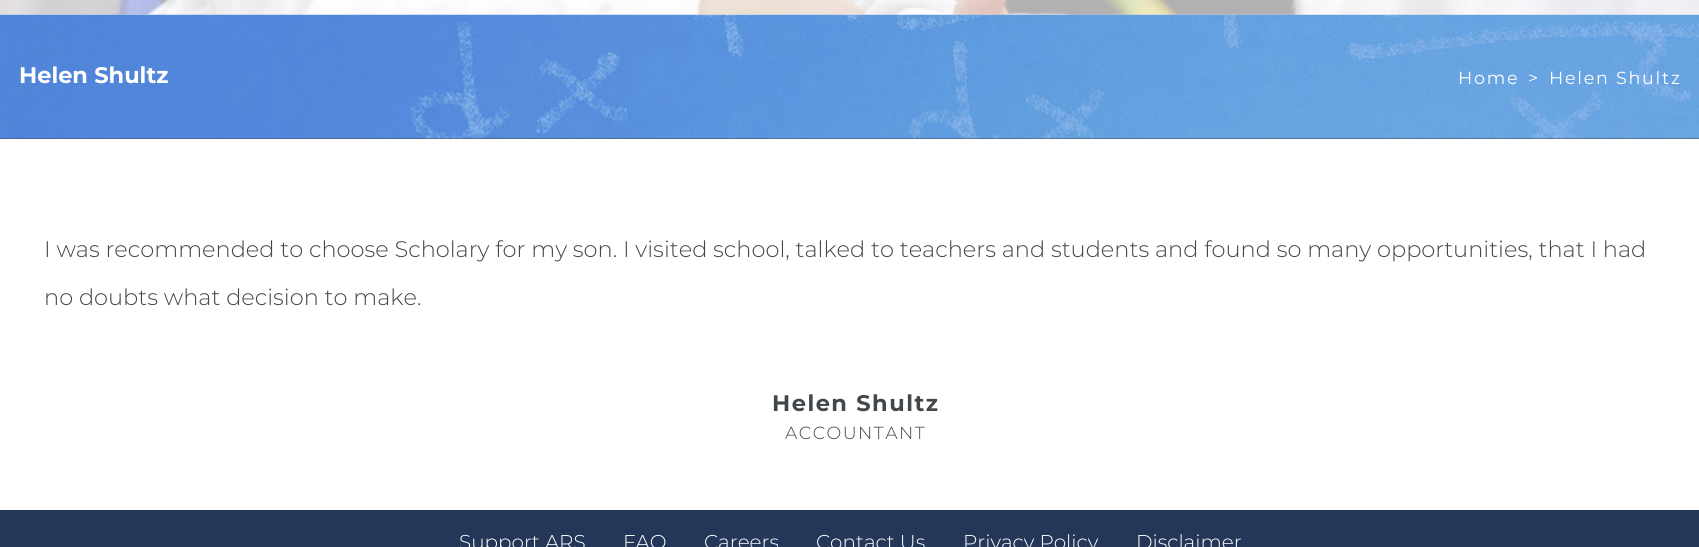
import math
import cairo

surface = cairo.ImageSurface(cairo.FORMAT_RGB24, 1699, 547)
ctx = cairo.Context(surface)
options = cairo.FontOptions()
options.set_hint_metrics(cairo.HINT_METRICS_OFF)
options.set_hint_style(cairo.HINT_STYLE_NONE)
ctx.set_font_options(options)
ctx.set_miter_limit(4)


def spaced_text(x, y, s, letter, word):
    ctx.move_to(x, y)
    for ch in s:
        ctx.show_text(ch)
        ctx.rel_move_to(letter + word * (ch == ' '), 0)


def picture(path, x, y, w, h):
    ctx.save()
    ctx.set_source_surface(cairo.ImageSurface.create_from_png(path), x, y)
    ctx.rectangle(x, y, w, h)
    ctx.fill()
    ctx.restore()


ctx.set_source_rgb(1, 1, 1)
ctx.paint()
picture("img1.png", 0, 0, 1699, 15)
ctx.set_source_rgb(0.259, 0.278, 0.298)
ctx.rectangle(0, 138, 1699, 1)
ctx.fill()
picture("img2.png", 0, 14, 1699, 125)
ctx.select_font_face("Montserrat", cairo.FONT_SLANT_NORMAL, cairo.FONT_WEIGHT_BOLD)
ctx.set_font_size(22.5)
ctx.set_source_rgb(1, 1, 1)
ctx.move_to(19, 83)
ctx.show_text("Helen Shultz")
ctx.select_font_face("Montserrat")
ctx.set_font_size(17.5)
spaced_text(1458, 84, "Home", 1.75, 0)
spaced_text(1528, 84, ">", 1.75, 0)
spaced_text(1549, 84, "Helen Shultz", 1.75, 0)
ctx.select_font_face("Montserrat Light")
ctx.set_font_size(22.5)
ctx.set_source_rgb(0.259, 0.278, 0.298)
ctx.move_to(44, 257)
ctx.show_text("I was recommended to choose Scholary for my son. I visited school, talked to teachers and students and found so many opportunities, that I had")
ctx.move_to(44, 305)
ctx.show_text("no doubts what decision to make.")
ctx.select_font_face("Montserrat", cairo.FONT_SLANT_NORMAL, cairo.FONT_WEIGHT_BOLD)
spaced_text(772, 411, "Helen Shultz", 1.5, 0)
ctx.select_font_face("Montserrat Light")
ctx.set_font_size(17.5)
spaced_text(785, 439, "ACCOUNTANT", 1.5, 0)
ctx.set_source_rgb(0.141, 0.216, 0.345)
ctx.rectangle(0, 510, 1699, 37)
ctx.fill()
ctx.set_font_size(20)
ctx.set_source_rgb(1, 1, 1)
ctx.move_to(459, 549)
ctx.show_text("Support ARS")
ctx.move_to(623, 549)
ctx.show_text("FAQ")
ctx.move_to(704, 549)
ctx.show_text("Careers")
ctx.move_to(816, 549)
ctx.show_text("Contact Us")
ctx.move_to(963, 549)
ctx.show_text("Privacy Policy")
ctx.move_to(1136, 549)
ctx.show_text("Disclaimer")
surface.write_to_png("page.png")
